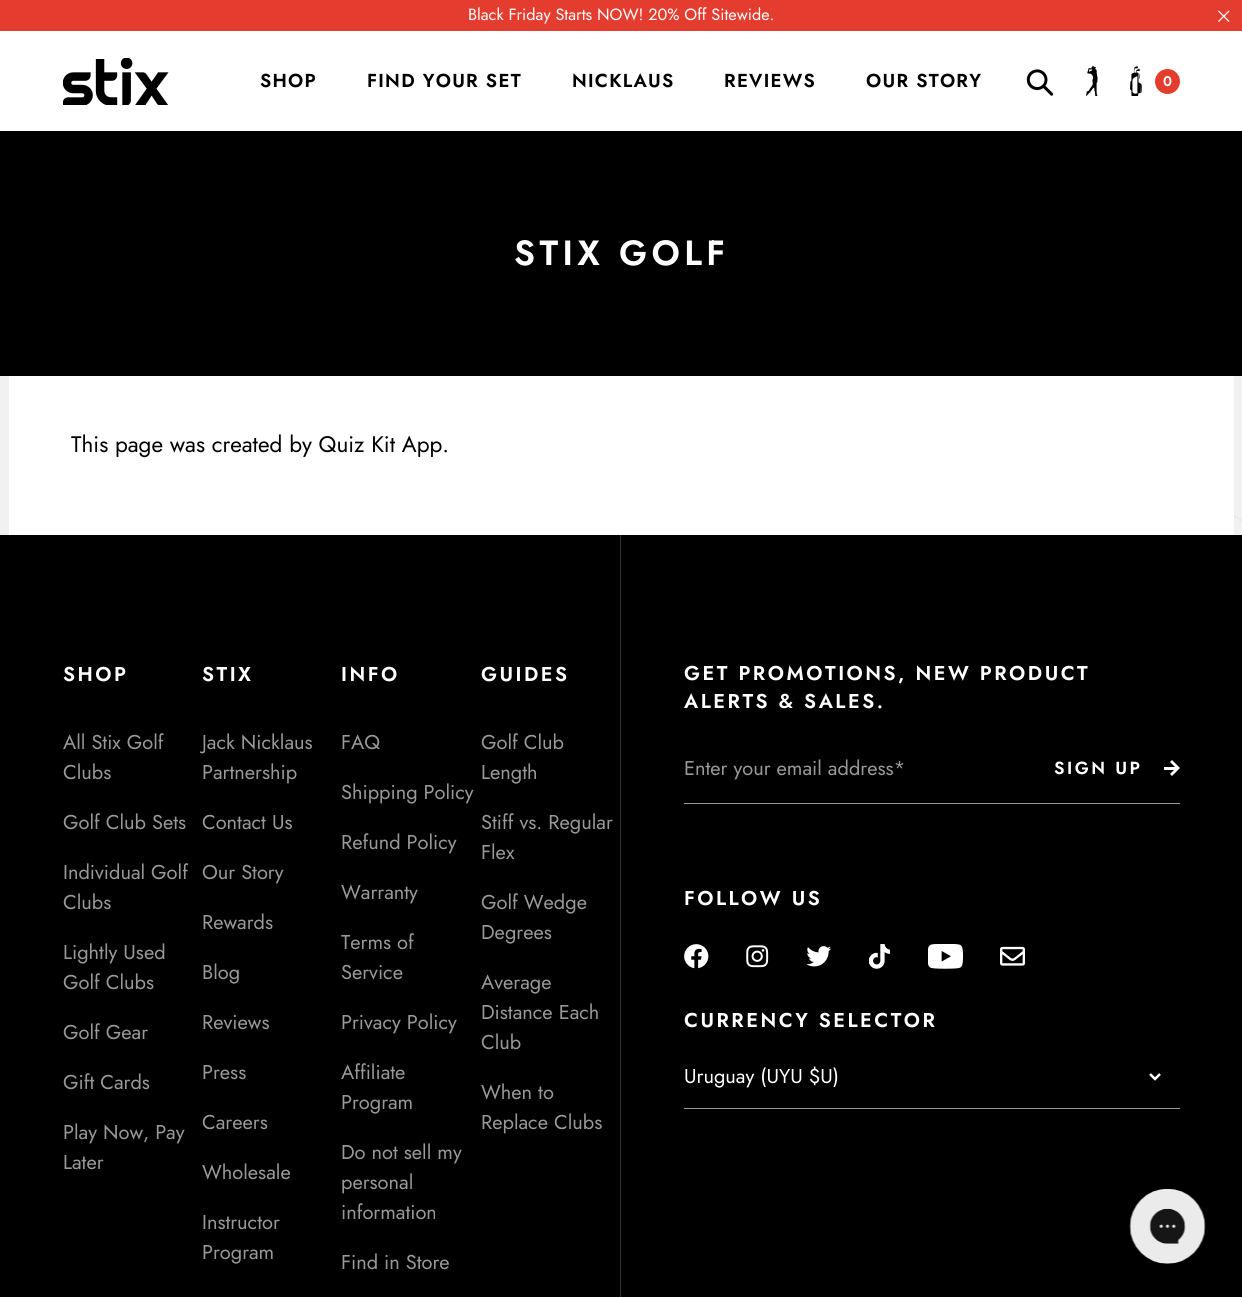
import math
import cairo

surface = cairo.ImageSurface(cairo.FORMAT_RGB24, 1242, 1297)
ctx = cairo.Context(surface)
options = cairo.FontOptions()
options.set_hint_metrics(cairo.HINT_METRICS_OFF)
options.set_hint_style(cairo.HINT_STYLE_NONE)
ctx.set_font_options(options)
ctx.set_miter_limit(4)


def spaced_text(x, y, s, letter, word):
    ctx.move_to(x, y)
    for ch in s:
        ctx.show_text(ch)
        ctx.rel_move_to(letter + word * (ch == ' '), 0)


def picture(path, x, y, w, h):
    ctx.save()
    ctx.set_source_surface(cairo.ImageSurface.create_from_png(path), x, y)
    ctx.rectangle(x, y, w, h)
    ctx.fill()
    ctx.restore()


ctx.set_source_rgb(1, 1, 1)
ctx.paint()
ctx.set_source_rgb(0.894, 0.239, 0.188)
ctx.rectangle(0, 0, 1242, 31)
ctx.fill()
ctx.select_font_face("Jost")
ctx.set_font_size(16.25)
ctx.set_source_rgb(1, 1, 1)
ctx.move_to(468, 20)
ctx.show_text("Black Friday Starts NOW! 20% Off Sitewide.")
picture("img1.png", 1218, 10, 12, 12)
picture("img2.png", 63, 58, 106, 47)
ctx.select_font_face("Jost SemiBold")
ctx.set_font_size(18.75)
ctx.set_source_rgb(0, 0, 0)
spaced_text(260, 87, "SHOP", 1.25, 0)
spaced_text(367, 87, "FIND YOUR SET", 1.25, 0)
spaced_text(572, 87, "NICKLAUS", 1.25, 0)
spaced_text(724, 87, "REVIEWS", 1.25, 0)
spaced_text(866, 87, "OUR STORY", 1.25, 0)
picture("img3.png", 1026, 69, 28, 27)
picture("img4.png", 1086, 66, 12, 30)
picture("img5.png", 1130, 66, 13, 30)
ctx.set_source_rgb(0.894, 0.239, 0.188)
ctx.arc(1167.5, 81.5, 12.5, 0, 2 * math.pi)
ctx.fill()
ctx.set_font_size(14)
ctx.set_source_rgb(1, 1, 1)
ctx.move_to(1163, 86)
ctx.show_text("0")
ctx.set_source_rgb(0, 0, 0)
ctx.rectangle(0, 131, 1242, 245)
ctx.fill()
ctx.set_font_size(35)
ctx.set_source_rgb(1, 1, 1)
spaced_text(514, 265, "STIX GOLF", 4.4, 0)
ctx.set_source_rgb(0.945, 0.945, 0.945)
ctx.rectangle(0, 376, 1242, 159)
ctx.fill()
picture("img6.png", 1234, 515, 8, 6)
ctx.set_source_rgb(1, 1, 1)
ctx.rectangle(9, 376, 1225, 159)
ctx.fill()
ctx.select_font_face("Jost")
ctx.set_font_size(22.5)
ctx.set_source_rgb(0, 0, 0)
ctx.move_to(71, 452)
ctx.show_text("This page was created by Quiz Kit App.")
ctx.rectangle(0, 535, 1242, 762)
ctx.fill()
ctx.set_source_rgb(0.2, 0.2, 0.2)
ctx.rectangle(620, 535, 1, 762)
ctx.fill()
ctx.select_font_face("Jost SemiBold")
ctx.set_font_size(20)
ctx.set_source_rgb(1, 1, 1)
spaced_text(63, 681, "SHOP", 2.5, 0)
ctx.select_font_face("Jost")
ctx.set_source_rgb(0.6, 0.6, 0.6)
ctx.move_to(63, 749)
ctx.show_text("All Stix Golf")
ctx.move_to(63, 779)
ctx.show_text("Clubs")
ctx.move_to(63, 829)
ctx.show_text("Golf Club Sets")
ctx.move_to(63, 879)
ctx.show_text("Individual Golf")
ctx.move_to(63, 909)
ctx.show_text("Clubs")
ctx.move_to(63, 959)
ctx.show_text("Lightly Used")
ctx.move_to(63, 989)
ctx.show_text("Golf Clubs")
ctx.move_to(63, 1039)
ctx.show_text("Golf Gear")
ctx.move_to(63, 1089)
ctx.show_text("Gift Cards")
ctx.move_to(63, 1139)
ctx.show_text("Play Now, Pay")
ctx.move_to(63, 1169)
ctx.show_text("Later")
ctx.select_font_face("Jost SemiBold")
ctx.set_source_rgb(1, 1, 1)
spaced_text(202, 681, "STIX", 2.5, 0)
ctx.select_font_face("Jost")
ctx.set_source_rgb(0.6, 0.6, 0.6)
ctx.move_to(202, 749)
ctx.show_text("Jack Nicklaus")
ctx.move_to(202, 779)
ctx.show_text("Partnership")
ctx.move_to(202, 829)
ctx.show_text("Contact Us")
ctx.move_to(202, 879)
ctx.show_text("Our Story")
ctx.move_to(202, 929)
ctx.show_text("Rewards")
ctx.move_to(202, 979)
ctx.show_text("Blog")
ctx.move_to(202, 1029)
ctx.show_text("Reviews")
ctx.move_to(202, 1079)
ctx.show_text("Press")
ctx.move_to(202, 1129)
ctx.show_text("Careers")
ctx.move_to(202, 1179)
ctx.show_text("Wholesale")
ctx.move_to(202, 1229)
ctx.show_text("Instructor")
ctx.move_to(202, 1259)
ctx.show_text("Program")
ctx.select_font_face("Jost SemiBold")
ctx.set_source_rgb(1, 1, 1)
spaced_text(341, 681, "INFO", 2.5, 0)
ctx.select_font_face("Jost")
ctx.set_source_rgb(0.6, 0.6, 0.6)
ctx.move_to(341, 749)
ctx.show_text("FAQ")
ctx.move_to(341, 799)
ctx.show_text("Shipping Policy")
ctx.move_to(341, 849)
ctx.show_text("Refund Policy")
ctx.move_to(341, 899)
ctx.show_text("Warranty")
ctx.move_to(341, 949)
ctx.show_text("Terms of")
ctx.move_to(341, 979)
ctx.show_text("Service")
ctx.move_to(341, 1029)
ctx.show_text("Privacy Policy")
ctx.move_to(341, 1079)
ctx.show_text("Affiliate")
ctx.move_to(341, 1109)
ctx.show_text("Program")
ctx.move_to(341, 1159)
ctx.show_text("Do not sell my")
ctx.move_to(341, 1189)
ctx.show_text("personal")
ctx.move_to(341, 1219)
ctx.show_text("information")
ctx.move_to(341, 1269)
ctx.show_text("Find in Store")
ctx.select_font_face("Jost SemiBold")
ctx.set_source_rgb(1, 1, 1)
spaced_text(481, 681, "GUIDES", 2.5, 0)
ctx.select_font_face("Jost")
ctx.set_source_rgb(0.6, 0.6, 0.6)
ctx.move_to(481, 749)
ctx.show_text("Golf Club")
ctx.move_to(481, 779)
ctx.show_text("Length")
ctx.move_to(481, 829)
ctx.show_text("Stiff vs. Regular")
ctx.move_to(481, 859)
ctx.show_text("Flex")
ctx.move_to(481, 909)
ctx.show_text("Golf Wedge")
ctx.move_to(481, 939)
ctx.show_text("Degrees")
ctx.move_to(481, 989)
ctx.show_text("Average")
ctx.move_to(481, 1019)
ctx.show_text("Distance Each")
ctx.move_to(481, 1049)
ctx.show_text("Club")
ctx.move_to(481, 1099)
ctx.show_text("When to")
ctx.move_to(481, 1129)
ctx.show_text("Replace Clubs")
ctx.select_font_face("Jost SemiBold")
ctx.set_source_rgb(1, 1, 1)
spaced_text(684, 680, "GET PROMOTIONS, NEW PRODUCT", 2.5, 0)
spaced_text(684, 708, "ALERTS & SALES.", 2.5, 0)
ctx.set_source_rgb(0.6, 0.6, 0.6)
ctx.rectangle(684, 803, 496, 1)
ctx.fill()
ctx.select_font_face("Jost")
ctx.move_to(684, 775)
ctx.show_text("Enter your email address*")
ctx.new_path()
ctx.move_to(1171, 761)
ctx.line_to(1178, 768)
ctx.line_to(1171, 775)
ctx.set_source_rgb(1, 1, 1)
ctx.set_line_width(2.8)
ctx.stroke()
ctx.rectangle(1164, 767, 13, 3)
ctx.fill()
ctx.select_font_face("Jost SemiBold")
ctx.set_font_size(17.5)
spaced_text(1054, 774, "SIGN UP", 2.5, 0)
ctx.set_font_size(20)
spaced_text(684, 905, "FOLLOW US", 2.5, 0)
picture("img7.png", 684, 944, 25, 25)
picture("img8.png", 746, 945, 23, 23)
picture("img9.png", 806, 946, 25, 21)
picture("img10.png", 869, 944, 21, 25)
picture("img11.png", 928, 944, 35, 25)
picture("img12.png", 1000, 946, 25, 20)
spaced_text(684, 1027, "CURRENCY SELECTOR", 2.5, 0)
ctx.new_path()
ctx.move_to(1150, 1074)
ctx.line_to(1155, 1079)
ctx.line_to(1160, 1074)
ctx.set_line_width(2.5)
ctx.stroke()
ctx.set_source_rgb(0.6, 0.6, 0.6)
ctx.rectangle(684, 1108, 496, 1)
ctx.fill()
ctx.select_font_face("Jost")
ctx.set_source_rgb(1, 1, 1)
ctx.move_to(684, 1083)
ctx.show_text("Uruguay (UYU $U)")
picture("img13.png", 1129, 1188, 77, 76)
surface.write_to_png("page.png")
